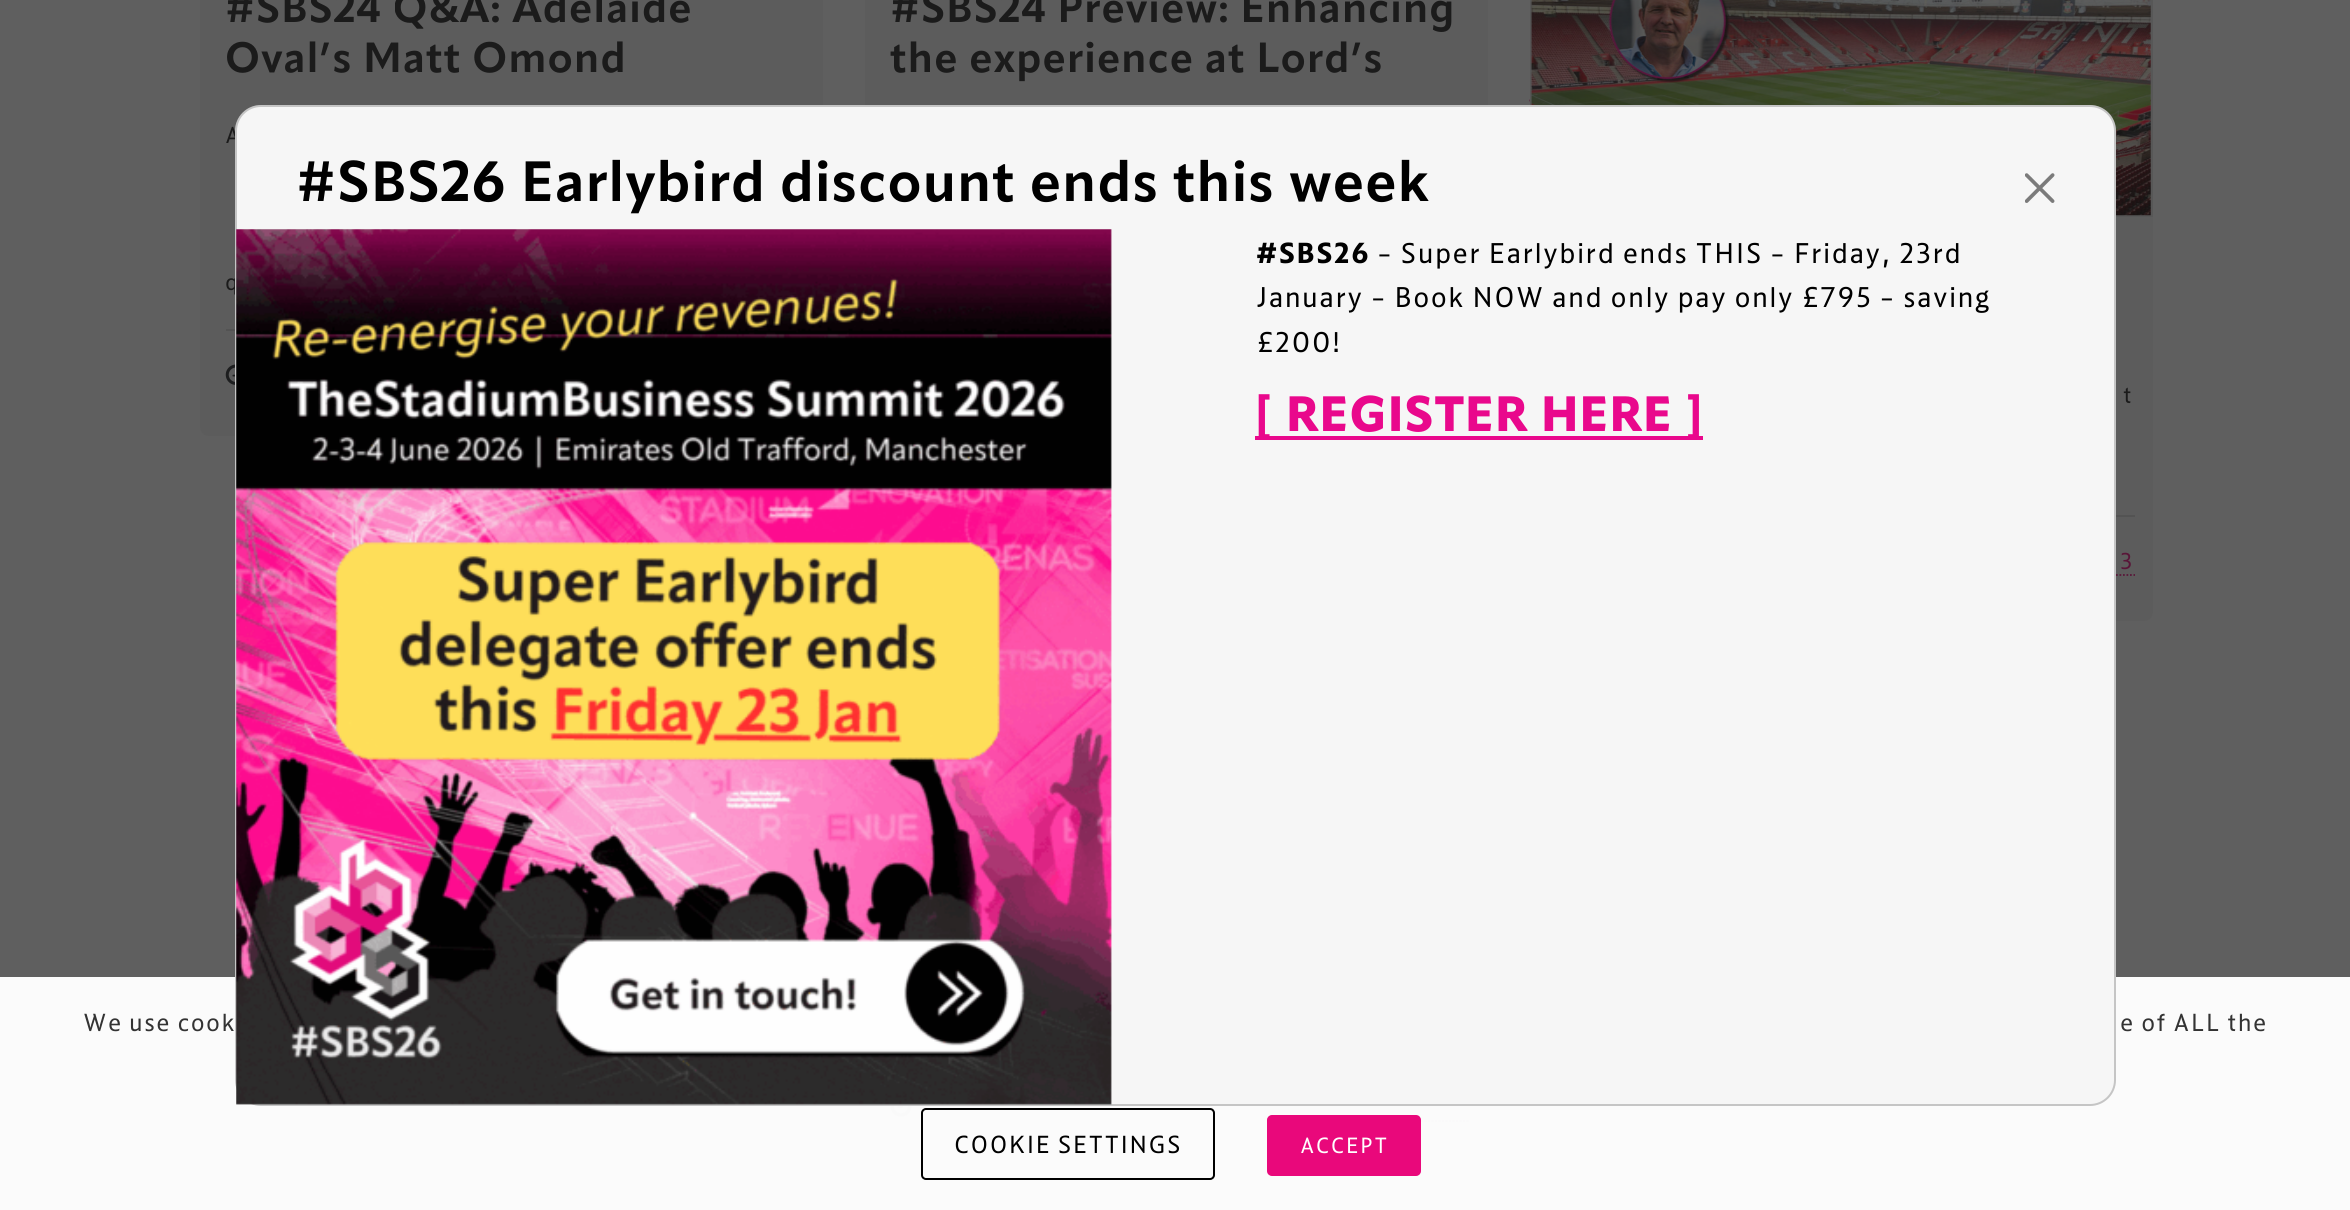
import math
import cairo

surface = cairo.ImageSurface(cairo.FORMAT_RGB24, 2350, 1210)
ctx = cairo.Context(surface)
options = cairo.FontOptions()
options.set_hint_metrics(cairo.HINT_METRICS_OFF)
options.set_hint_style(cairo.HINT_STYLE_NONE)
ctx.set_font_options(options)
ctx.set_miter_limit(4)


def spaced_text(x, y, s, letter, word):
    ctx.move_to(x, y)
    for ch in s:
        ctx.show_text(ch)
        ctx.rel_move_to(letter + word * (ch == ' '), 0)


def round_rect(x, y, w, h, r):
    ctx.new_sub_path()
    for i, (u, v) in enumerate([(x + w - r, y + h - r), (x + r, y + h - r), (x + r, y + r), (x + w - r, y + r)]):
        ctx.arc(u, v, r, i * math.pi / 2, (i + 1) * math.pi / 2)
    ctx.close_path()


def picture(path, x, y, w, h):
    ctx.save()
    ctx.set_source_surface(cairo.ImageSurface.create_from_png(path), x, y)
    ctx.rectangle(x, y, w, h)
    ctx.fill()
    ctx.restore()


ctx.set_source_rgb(0.373, 0.373, 0.373)
ctx.paint()
ctx.set_source_rgb(0.361, 0.361, 0.361)
ctx.new_path()
ctx.move_to(200, -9)
ctx.line_to(823, -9)
ctx.line_to(823, 427)
ctx.curve_to(823, 432, 819, 436, 814, 436)
ctx.line_to(209, 436)
ctx.curve_to(204, 436, 200, 432, 200, 427)
ctx.close_path()
ctx.fill()
ctx.select_font_face("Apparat", cairo.FONT_SLANT_NORMAL, cairo.FONT_WEIGHT_BOLD)
ctx.set_font_size(41.6)
ctx.set_source_rgb(0.106, 0.106, 0.106)
spaced_text(225, 22, "#SBS24 Q&A: Adelaide", 1.15, 0)
spaced_text(225, 72, "Oval’s Matt Omond", 1.15, 0)
ctx.set_source_rgb(0.325, 0.325, 0.325)
ctx.rectangle(226, 329, 9, 2)
ctx.fill()
ctx.select_font_face("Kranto")
ctx.set_font_size(24)
ctx.set_source_rgb(0.106, 0.106, 0.106)
spaced_text(225, 143, "A", 1.4, 0)
spaced_text(225, 290, "q", 1.4, 0)
picture("img1.png", 225, 364, 10, 21)
ctx.set_source_rgb(0.361, 0.361, 0.361)
ctx.rectangle(865, 0, 623, 105)
ctx.fill()
ctx.select_font_face("Apparat", cairo.FONT_SLANT_NORMAL, cairo.FONT_WEIGHT_BOLD)
ctx.set_font_size(41.6)
ctx.set_source_rgb(0.106, 0.106, 0.106)
spaced_text(890, 22, "#SBS24 Preview: Enhancing", 1.15, 0)
spaced_text(890, 72, "the experience at Lord’s", 1.15, 0)
ctx.set_source_rgb(0.361, 0.361, 0.361)
ctx.new_path()
ctx.move_to(1530, -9)
ctx.line_to(2153, -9)
ctx.line_to(2153, 612)
ctx.curve_to(2153, 617, 2149, 621, 2144, 621)
ctx.line_to(1539, 621)
ctx.curve_to(1534, 621, 1530, 617, 1530, 612)
ctx.close_path()
ctx.fill()
ctx.new_path()
ctx.move_to(1529.5, 100.5)
ctx.line_to(2152.5, 100.5)
ctx.set_source_rgb(0.349, 0.086, 0.22)
ctx.set_line_width(1.8)
ctx.set_dash([1.75, 1.75])
ctx.stroke()
ctx.rectangle(1531, -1, 621, 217)
ctx.set_source_rgb(0.341, 0.341, 0.341)
ctx.set_line_width(2)
ctx.set_dash([])
ctx.stroke()
picture("img2.png", 1530, 0, 621, 216)
ctx.set_source_rgb(0.325, 0.325, 0.325)
ctx.rectangle(2116, 515, 19, 2)
ctx.fill()
ctx.select_font_face("Kranto")
ctx.set_font_size(24)
ctx.set_source_rgb(0.106, 0.106, 0.106)
spaced_text(2123, 403, "t", 1.4, 0)
ctx.set_source_rgb(0.349, 0.086, 0.22)
spaced_text(2120, 569, "3", 1.4, 0)
ctx.new_path()
ctx.move_to(1997, 575)
ctx.line_to(2135, 575)
ctx.set_line_width(1.8)
ctx.set_dash([1.75, 1.75])
ctx.stroke()
ctx.set_source_rgb(0.361, 0.361, 0.361)
ctx.new_path()
ctx.move_to(865, 681)
ctx.line_to(1488, 681)
ctx.line_to(1488, 1158)
ctx.curve_to(1488, 1163, 1484, 1167, 1479, 1167)
ctx.line_to(874, 1167)
ctx.curve_to(869, 1167, 865, 1163, 865, 1158)
ctx.close_path()
ctx.fill()
picture("img3.png", 890, 1106, 22, 11)
ctx.new_path()
ctx.move_to(1284.5, 1121)
ctx.line_to(1470, 1121)
ctx.set_source_rgb(0.349, 0.086, 0.22)
ctx.stroke()
ctx.set_source_rgba(1, 1, 1, 0.97)
ctx.rectangle(0, 977, 2350, 233)
ctx.fill()
ctx.set_source_rgb(0.961, 0.961, 0.961)
round_rect(235, 105, 1881, 1001, 26)
ctx.fill()
round_rect(236, 106, 1879, 999, 25)
ctx.set_source_rgba(0, 0, 0, 0.2)
ctx.set_line_width(2)
ctx.set_dash([])
ctx.stroke()
ctx.select_font_face("Apparat", cairo.FONT_SLANT_NORMAL, cairo.FONT_WEIGHT_BOLD)
ctx.set_font_size(56)
ctx.set_source_rgb(0, 0, 0)
spaced_text(296, 201, "#SBS26 Earlybird discount ends this week", 1.15, 0)
picture("img4.png", 2025, 173, 30, 30)
picture("img5.png", 236, 229, 876, 876)
ctx.select_font_face("Kranto", cairo.FONT_SLANT_NORMAL, cairo.FONT_WEIGHT_BOLD)
ctx.set_font_size(29.75)
spaced_text(1256, 263, "#SBS26", 1.4, 0)
ctx.select_font_face("Kranto")
spaced_text(1377, 263, "– Super Earlybird ends THIS – Friday, 23rd", 1.4, 0)
spaced_text(1256, 307, "January – Book NOW and only pay only £795 – saving", 1.4, 0)
spaced_text(1256, 352, "£200!", 1.4, 0)
ctx.set_source_rgb(0.914, 0.035, 0.549)
ctx.rectangle(1255, 436, 448, 4)
ctx.fill()
ctx.select_font_face("Apparat ExtraBold")
ctx.set_font_size(49)
spaced_text(1256, 431, "[ REGISTER HERE ]", 1.15, 0)
ctx.select_font_face("Kranto")
ctx.set_font_size(25.75)
ctx.set_source_rgb(0.2, 0.2, 0.2)
spaced_text(83, 1031, "We use cook", 1.4, 0)
spaced_text(2120, 1031, "e of ALL the", 1.4, 0)
round_rect(922, 1109, 292, 70, 4)
ctx.set_source_rgb(0, 0, 0)
ctx.stroke()
spaced_text(954, 1153, "COOKIE SETTINGS", 1.4, 0)
ctx.set_source_rgb(0.914, 0.035, 0.482)
round_rect(1268, 1116, 152, 59, 4)
ctx.fill_preserve()
ctx.stroke()
ctx.set_font_size(23)
ctx.set_source_rgb(1, 1, 1)
spaced_text(1300, 1153, "ACCEPT", 1.4, 0)
surface.write_to_png("page.png")
